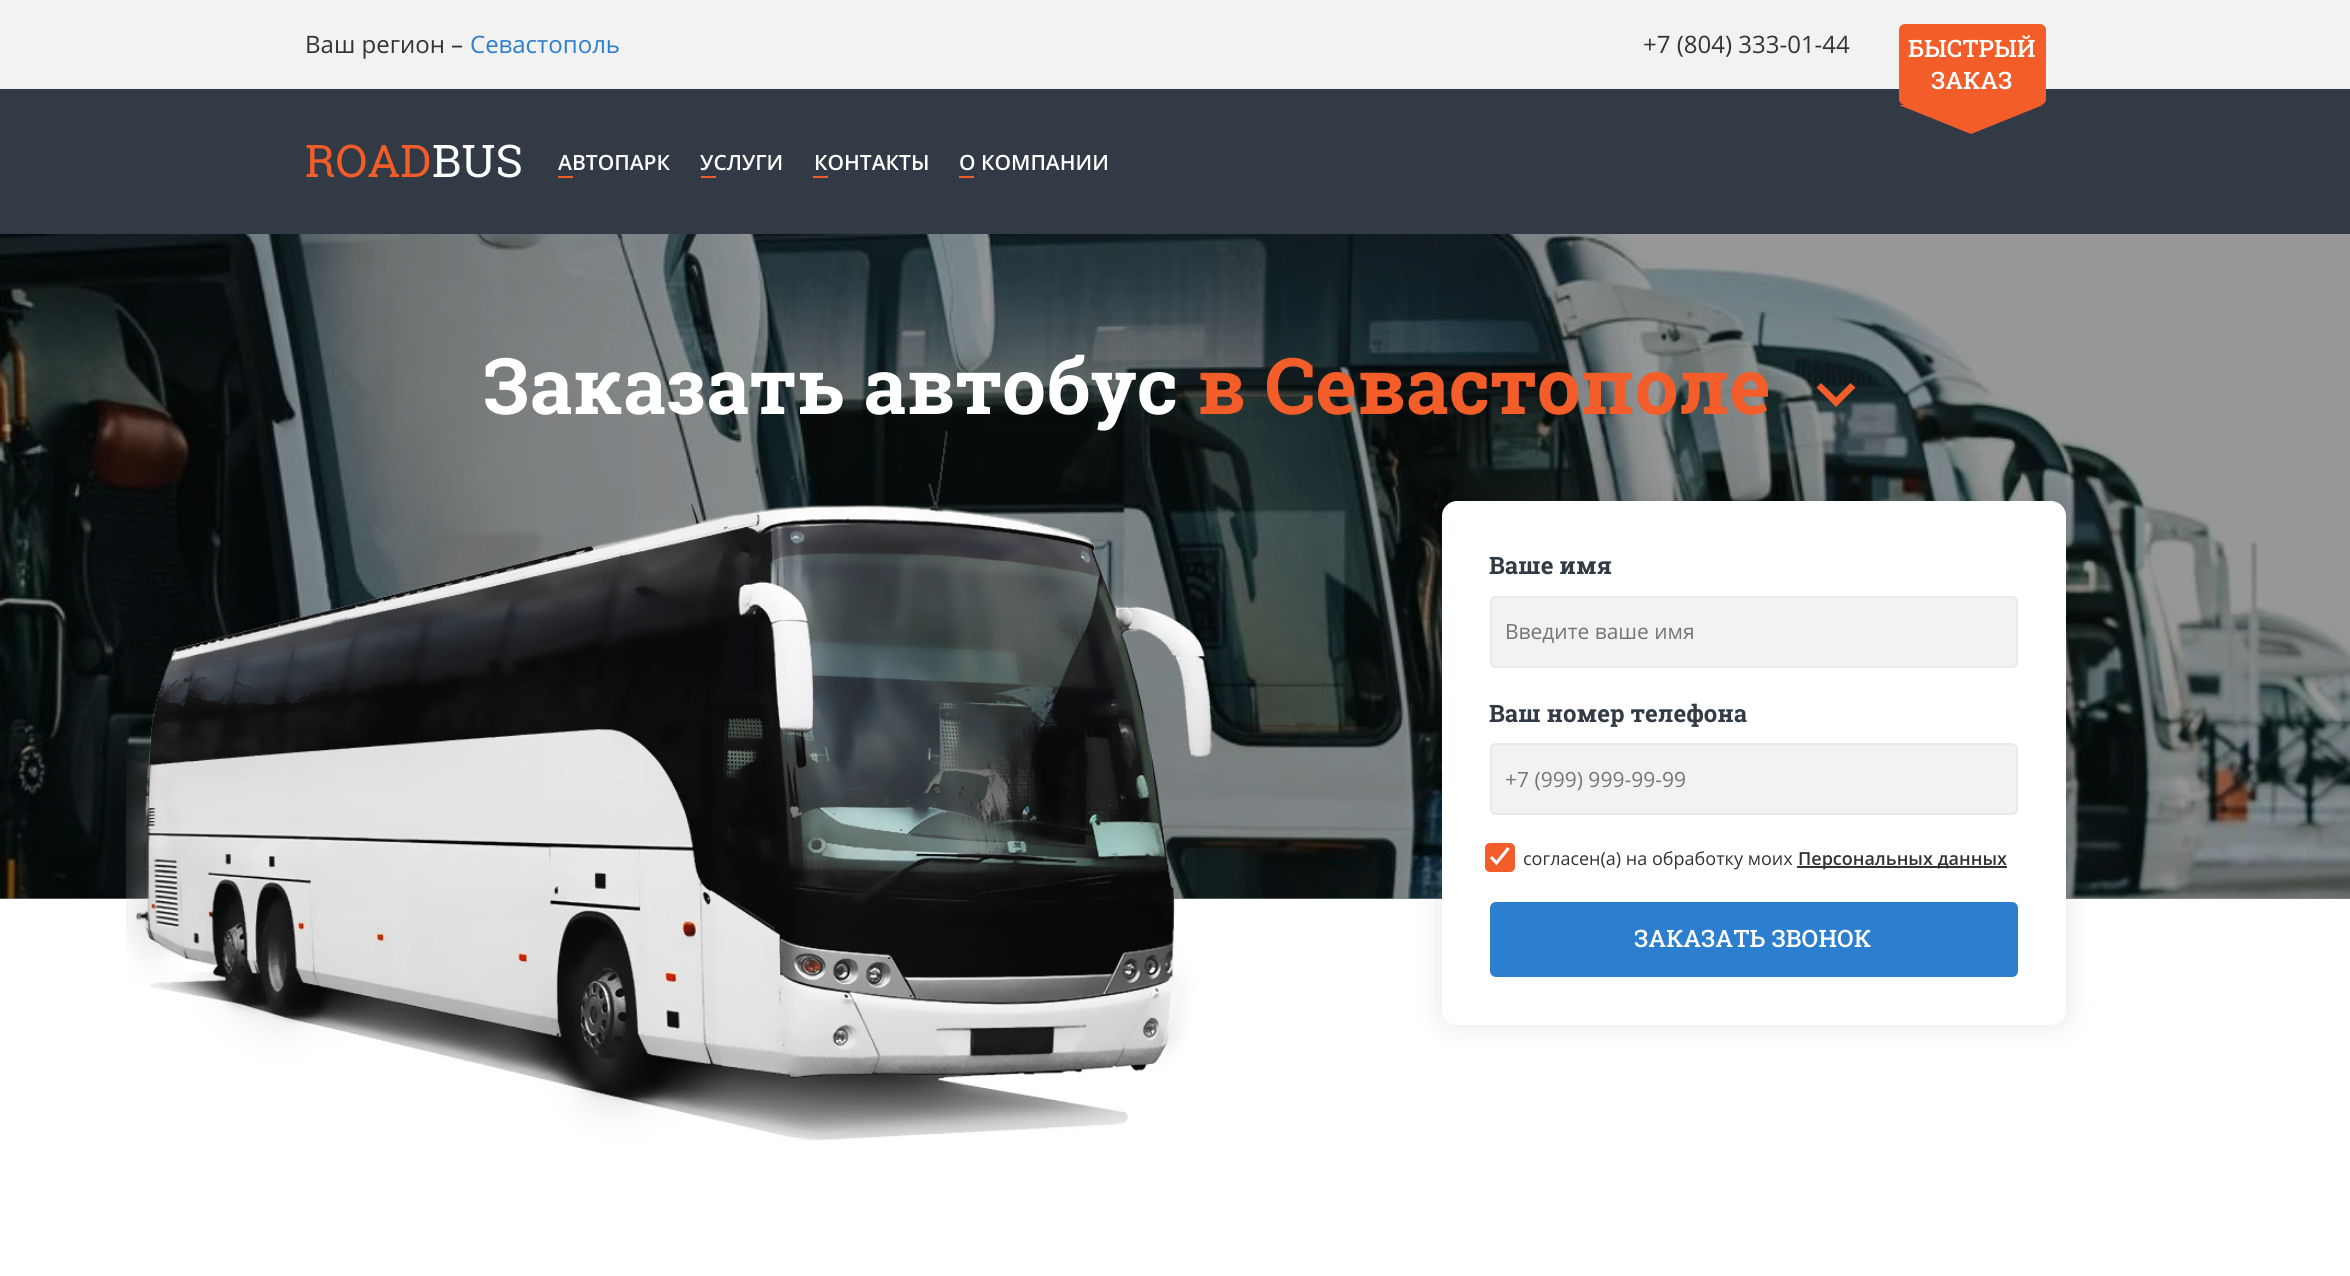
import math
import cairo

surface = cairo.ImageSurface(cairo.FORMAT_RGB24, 2350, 1276)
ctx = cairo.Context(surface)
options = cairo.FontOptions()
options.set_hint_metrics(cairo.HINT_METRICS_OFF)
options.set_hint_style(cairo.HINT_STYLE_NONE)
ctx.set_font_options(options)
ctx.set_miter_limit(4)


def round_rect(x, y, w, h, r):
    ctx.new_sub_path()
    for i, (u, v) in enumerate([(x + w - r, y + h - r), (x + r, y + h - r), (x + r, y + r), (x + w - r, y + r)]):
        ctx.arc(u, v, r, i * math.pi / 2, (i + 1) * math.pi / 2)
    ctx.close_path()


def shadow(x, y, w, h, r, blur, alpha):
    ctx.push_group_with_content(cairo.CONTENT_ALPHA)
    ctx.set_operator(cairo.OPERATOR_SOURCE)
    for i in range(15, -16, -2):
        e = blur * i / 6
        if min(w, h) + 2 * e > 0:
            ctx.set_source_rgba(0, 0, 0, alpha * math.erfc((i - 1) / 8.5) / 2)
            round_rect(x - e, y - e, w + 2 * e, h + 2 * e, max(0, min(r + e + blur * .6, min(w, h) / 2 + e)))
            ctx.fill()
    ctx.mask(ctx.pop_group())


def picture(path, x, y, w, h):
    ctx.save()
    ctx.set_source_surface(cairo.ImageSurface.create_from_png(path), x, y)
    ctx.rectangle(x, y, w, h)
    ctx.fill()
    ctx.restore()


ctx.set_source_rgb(1, 1, 1)
ctx.paint()
ctx.set_source_rgb(0.6, 0.6, 0.6)
ctx.rectangle(0, 898, 2350, 1)
ctx.fill()
ctx.set_source_rgb(0.196, 0.227, 0.271)
ctx.rectangle(0, 89, 2350, 145)
ctx.fill()
ctx.set_source_rgb(0.949, 0.949, 0.949)
ctx.rectangle(0, 0, 2350, 89)
ctx.fill()
ctx.set_source_rgb(0.949, 0.365, 0.165)
round_rect(1899, 24, 147, 81, 6)
ctx.fill()
ctx.select_font_face("Roboto Slab Medium")
ctx.set_font_size(24)
ctx.set_source_rgb(1, 1, 1)
ctx.move_to(1908, 57)
ctx.show_text("БЫСТРЫЙ")
ctx.move_to(1931, 89)
ctx.show_text("ЗАКАЗ")
ctx.set_source_rgb(0.949, 0.365, 0.165)
ctx.new_path()
ctx.move_to(1899, 105)
ctx.line_to(2043, 105)
ctx.line_to(1971, 134)
ctx.close_path()
ctx.fill()
ctx.select_font_face("Roboto Slab")
ctx.set_font_size(45)
ctx.move_to(305, 177)
ctx.show_text("ROAD")
ctx.set_source_rgb(1, 1, 1)
ctx.move_to(432, 177)
ctx.show_text("BUS")
ctx.select_font_face("Open Sans SemiBold")
ctx.set_font_size(21)
ctx.move_to(558, 170)
ctx.show_text("АВТОПАРК")
ctx.set_source_rgb(0.949, 0.365, 0.165)
ctx.rectangle(558, 176, 15, 2)
ctx.fill()
ctx.set_source_rgb(1, 1, 1)
ctx.move_to(700, 170)
ctx.show_text("УСЛУГИ")
ctx.set_source_rgb(0.949, 0.365, 0.165)
ctx.rectangle(701, 176, 15, 2)
ctx.fill()
ctx.set_source_rgb(1, 1, 1)
ctx.move_to(814, 170)
ctx.show_text("КОНТАКТЫ")
ctx.set_source_rgb(0.949, 0.365, 0.165)
ctx.rectangle(813, 176, 15, 2)
ctx.fill()
ctx.set_source_rgb(1, 1, 1)
ctx.move_to(959, 170)
ctx.show_text("О КОМПАНИИ")
ctx.set_source_rgb(0.949, 0.365, 0.165)
ctx.rectangle(959, 176, 15, 2)
ctx.fill()
ctx.select_font_face("Open Sans")
ctx.set_font_size(24)
ctx.set_source_rgb(0.2, 0.2, 0.2)
ctx.move_to(305, 53)
ctx.show_text("Ваш регион –")
ctx.set_source_rgb(0.173, 0.494, 0.812)
ctx.move_to(470, 53)
ctx.show_text("Севастополь")
ctx.set_source_rgb(0.2, 0.2, 0.2)
ctx.move_to(1643, 53)
ctx.show_text("+7 (804) 333-01-44")
picture("img1.png", 0, 234, 2350, 665)
ctx.select_font_face("Roboto Slab", cairo.FONT_SLANT_NORMAL, cairo.FONT_WEIGHT_BOLD)
ctx.set_font_size(78)
ctx.set_source_rgb(1, 1, 1)
ctx.move_to(483, 414)
ctx.show_text("Заказать автобус")
ctx.set_source_rgb(0.949, 0.365, 0.165)
ctx.move_to(1197, 414)
ctx.show_text("в Севастополе")
ctx.set_fill_rule(cairo.FILL_RULE_EVEN_ODD)
ctx.new_path()
ctx.move_to(1855.5, 387.5)
ctx.line_to(1836, 407)
ctx.line_to(1816.5, 387.5)
ctx.line_to(1821, 383)
ctx.line_to(1836, 397.5)
ctx.line_to(1850.5, 383)
ctx.close_path()
ctx.fill()
picture("img2.png", 126, 430, 1088, 711)
ctx.set_source_rgb(0, 0, 0)
shadow(1442, 501, 624, 524, 15, 15, 0.1)
ctx.set_source_rgb(1, 1, 1)
round_rect(1442, 501, 624, 524, 15)
ctx.fill()
ctx.set_font_size(24)
ctx.set_source_rgb(0.196, 0.227, 0.271)
ctx.move_to(1489, 574)
ctx.show_text("Ваше имя")
ctx.set_source_rgb(0.949, 0.949, 0.949)
round_rect(1491, 597, 526, 70, 5)
ctx.fill_preserve()
ctx.set_source_rgb(0.914, 0.914, 0.914)
ctx.stroke()
ctx.select_font_face("Open Sans")
ctx.set_font_size(21)
ctx.set_source_rgb(0.459, 0.459, 0.459)
ctx.move_to(1505, 639)
ctx.show_text("Введите ваше имя")
ctx.select_font_face("Roboto Slab", cairo.FONT_SLANT_NORMAL, cairo.FONT_WEIGHT_BOLD)
ctx.set_font_size(24)
ctx.set_source_rgb(0.196, 0.227, 0.271)
ctx.move_to(1489, 722)
ctx.show_text("Ваш номер телефона")
ctx.set_source_rgb(0.949, 0.949, 0.949)
round_rect(1491, 744, 526, 70, 5)
ctx.fill_preserve()
ctx.set_source_rgb(0.914, 0.914, 0.914)
ctx.stroke()
ctx.select_font_face("Open Sans")
ctx.set_font_size(21)
ctx.set_source_rgb(0.459, 0.459, 0.459)
ctx.move_to(1505, 787)
ctx.show_text("+7 (999) 999-99-99")
ctx.set_source_rgb(0.949, 0.365, 0.165)
round_rect(1485, 843, 30, 29, 5)
ctx.fill()
ctx.new_path()
ctx.move_to(1491, 857)
ctx.line_to(1496.5, 863)
ctx.line_to(1508.5, 848)
ctx.set_source_rgb(1, 1, 1)
ctx.set_line_width(3.1)
ctx.stroke()
ctx.set_font_size(18)
ctx.set_source_rgb(0.2, 0.2, 0.2)
ctx.move_to(1523, 865)
ctx.show_text("согласен(а) на обработку моих")
ctx.rectangle(1797, 866, 210, 2)
ctx.fill()
ctx.select_font_face("Open Sans SemiBold")
ctx.move_to(1798, 865)
ctx.show_text("Персональных данных")
ctx.set_source_rgb(0.173, 0.494, 0.812)
round_rect(1490, 902, 528, 75, 6)
ctx.fill()
ctx.select_font_face("Roboto Slab Medium")
ctx.set_font_size(24)
ctx.set_source_rgb(1, 1, 1)
ctx.move_to(1634, 947)
ctx.show_text("ЗАКАЗАТЬ ЗВОНОК")
surface.write_to_png("page.png")
